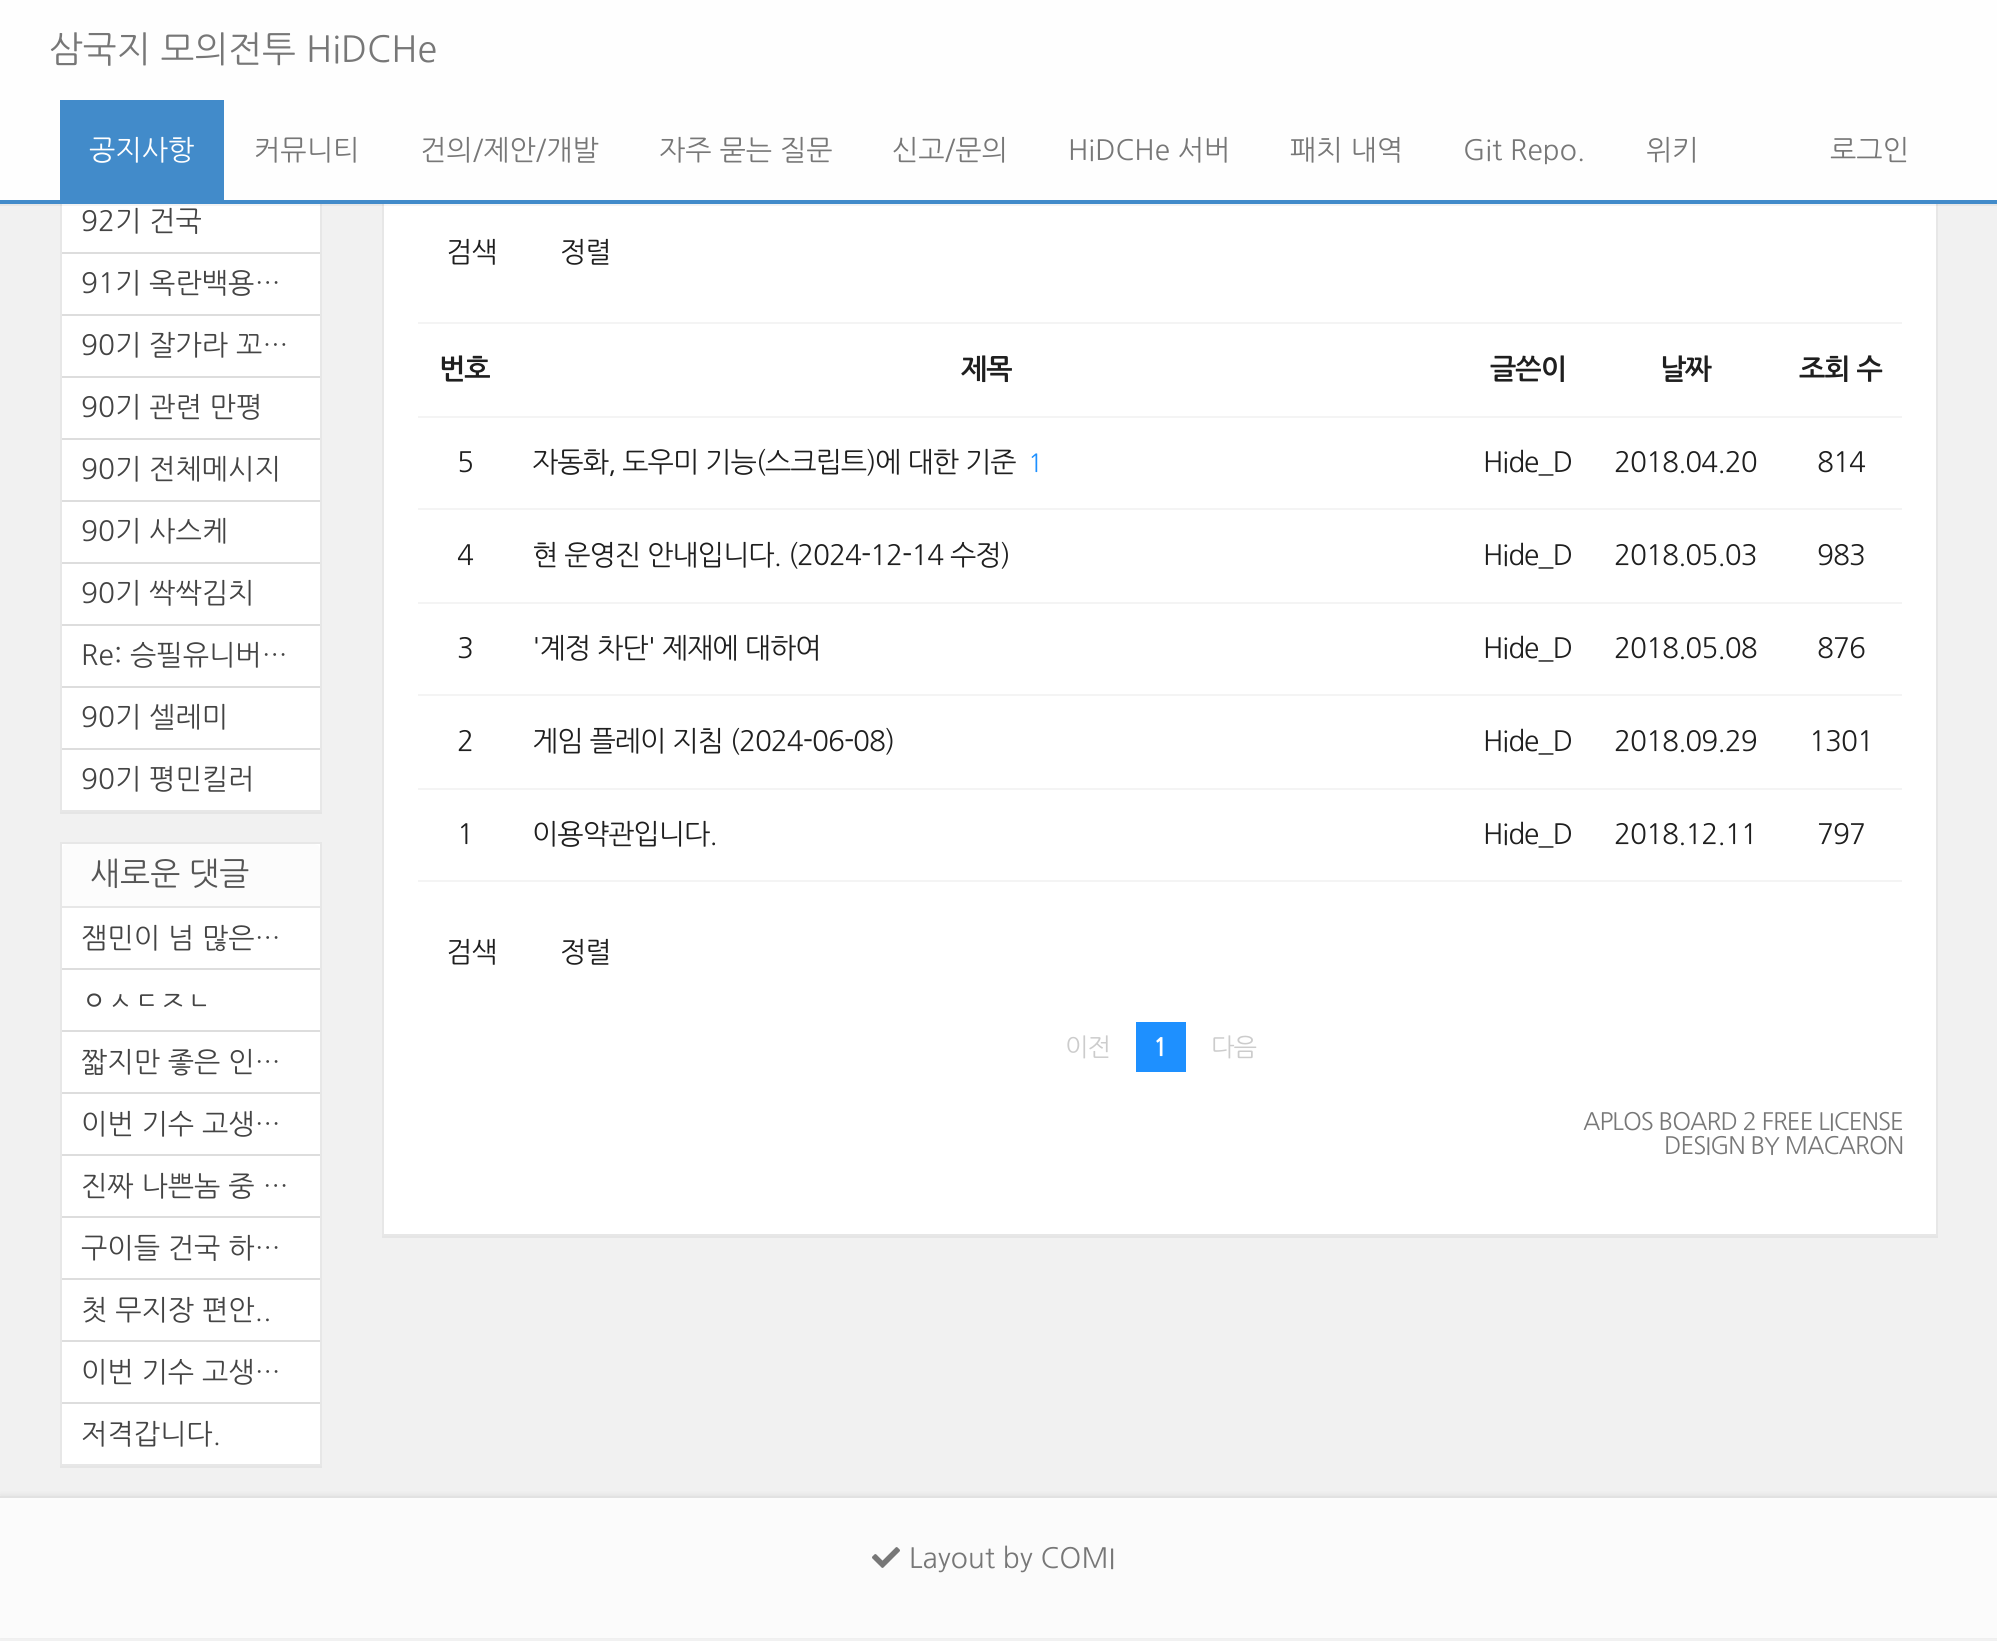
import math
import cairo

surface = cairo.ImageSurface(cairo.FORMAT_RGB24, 1997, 1641)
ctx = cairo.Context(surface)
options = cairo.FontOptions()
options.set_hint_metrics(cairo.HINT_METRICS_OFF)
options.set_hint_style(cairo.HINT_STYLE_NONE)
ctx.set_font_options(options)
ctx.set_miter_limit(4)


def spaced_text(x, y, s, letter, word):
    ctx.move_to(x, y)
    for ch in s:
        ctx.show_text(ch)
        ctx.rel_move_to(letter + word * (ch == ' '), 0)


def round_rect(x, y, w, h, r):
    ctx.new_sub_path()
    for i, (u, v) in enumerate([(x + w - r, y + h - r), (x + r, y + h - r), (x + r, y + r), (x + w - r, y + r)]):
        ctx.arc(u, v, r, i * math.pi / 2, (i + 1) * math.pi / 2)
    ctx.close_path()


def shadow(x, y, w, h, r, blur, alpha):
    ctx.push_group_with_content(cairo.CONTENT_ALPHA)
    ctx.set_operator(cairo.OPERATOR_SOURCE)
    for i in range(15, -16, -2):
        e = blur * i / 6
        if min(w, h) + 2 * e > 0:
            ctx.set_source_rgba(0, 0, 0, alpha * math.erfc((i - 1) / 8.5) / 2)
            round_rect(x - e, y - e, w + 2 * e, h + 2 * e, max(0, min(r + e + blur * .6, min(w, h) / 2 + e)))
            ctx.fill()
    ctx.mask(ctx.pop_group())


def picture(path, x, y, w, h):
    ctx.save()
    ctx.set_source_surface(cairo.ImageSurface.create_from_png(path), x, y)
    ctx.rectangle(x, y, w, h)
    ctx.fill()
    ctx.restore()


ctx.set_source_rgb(0.945, 0.945, 0.945)
ctx.paint()
ctx.set_source_rgb(1, 1, 1)
ctx.rectangle(62, 204, 258, 606)
ctx.fill()
ctx.rectangle(61, 125, 260, 686)
ctx.set_source_rgb(0.906, 0.906, 0.906)
ctx.stroke()
ctx.set_source_rgb(1, 1, 1)
ctx.rectangle(384, 204, 1552, 1030)
ctx.fill()
ctx.rectangle(383, 125, 1554, 1110)
ctx.set_source_rgb(0.906, 0.906, 0.906)
ctx.stroke()
ctx.set_source_rgba(0, 0, 0, 0.05)
ctx.rectangle(0, 204, 1997, 2)
ctx.fill()
ctx.set_source_rgb(0.996, 0.996, 0.996)
ctx.rectangle(0, 0, 1997, 200)
ctx.fill()
ctx.set_source_rgb(0.259, 0.545, 0.792)
ctx.rectangle(0, 200, 1997, 4)
ctx.fill()
ctx.select_font_face("NanumGothic")
ctx.set_font_size(36)
ctx.set_source_rgb(0.467, 0.467, 0.467)
ctx.move_to(49, 62)
ctx.show_text("삼국지 모의전투 HiDCHe")
ctx.set_source_rgb(0.259, 0.545, 0.792)
ctx.rectangle(60, 100, 164, 100)
ctx.fill()
ctx.set_font_size(28)
ctx.set_source_rgb(1, 1, 1)
ctx.move_to(89, 160)
ctx.show_text("공지사항")
ctx.set_source_rgb(0.467, 0.467, 0.467)
ctx.move_to(254, 160)
ctx.show_text("커뮤니티")
ctx.move_to(420, 160)
ctx.show_text("건의/제안/개발")
ctx.move_to(659, 160)
ctx.show_text("자주 묻는 질문")
ctx.move_to(892, 160)
ctx.show_text("신고/문의")
ctx.move_to(1068, 160)
ctx.show_text("HiDCHe 서버")
ctx.move_to(1290, 160)
ctx.show_text("패치 내역")
ctx.move_to(1463, 160)
ctx.show_text("Git Repo.")
ctx.move_to(1646, 160)
ctx.show_text("위키")
ctx.move_to(1830, 160)
ctx.show_text("로그인")
ctx.set_source_rgb(0.898, 0.898, 0.898)
ctx.rectangle(60, 812, 262, 2)
ctx.fill()
ctx.set_source_rgb(0.867, 0.867, 0.867)
ctx.rectangle(62, 252, 258, 2)
ctx.fill()
ctx.set_source_rgb(0.267, 0.267, 0.267)
ctx.move_to(81, 231)
ctx.show_text("92기 건국")
ctx.set_source_rgb(0.867, 0.867, 0.867)
ctx.rectangle(62, 314, 258, 2)
ctx.fill()
ctx.set_source_rgb(0.267, 0.267, 0.267)
ctx.move_to(81, 293)
ctx.show_text("91기 옥란백용…")
ctx.set_source_rgb(0.867, 0.867, 0.867)
ctx.rectangle(62, 376, 258, 2)
ctx.fill()
ctx.set_source_rgb(0.267, 0.267, 0.267)
ctx.move_to(81, 355)
ctx.show_text("90기 잘가라 꼬…")
ctx.set_source_rgb(0.867, 0.867, 0.867)
ctx.rectangle(62, 438, 258, 2)
ctx.fill()
ctx.set_source_rgb(0.267, 0.267, 0.267)
ctx.move_to(81, 417)
ctx.show_text("90기 관련 만평")
ctx.set_source_rgb(0.867, 0.867, 0.867)
ctx.rectangle(62, 500, 258, 2)
ctx.fill()
ctx.set_source_rgb(0.267, 0.267, 0.267)
ctx.move_to(81, 479)
ctx.show_text("90기 전체메시지")
ctx.set_source_rgb(0.867, 0.867, 0.867)
ctx.rectangle(62, 562, 258, 2)
ctx.fill()
ctx.set_source_rgb(0.267, 0.267, 0.267)
ctx.move_to(81, 541)
ctx.show_text("90기 사스케")
ctx.set_source_rgb(0.867, 0.867, 0.867)
ctx.rectangle(62, 624, 258, 2)
ctx.fill()
ctx.set_source_rgb(0.267, 0.267, 0.267)
ctx.move_to(81, 603)
ctx.show_text("90기 싹싹김치")
ctx.set_source_rgb(0.867, 0.867, 0.867)
ctx.rectangle(62, 686, 258, 2)
ctx.fill()
ctx.set_source_rgb(0.267, 0.267, 0.267)
ctx.move_to(81, 665)
ctx.show_text("Re: 승필유니버…")
ctx.set_source_rgb(0.867, 0.867, 0.867)
ctx.rectangle(62, 748, 258, 2)
ctx.fill()
ctx.set_source_rgb(0.267, 0.267, 0.267)
ctx.move_to(81, 727)
ctx.show_text("90기 셀레미")
ctx.move_to(81, 789)
ctx.show_text("90기 평민킬러")
ctx.set_source_rgb(0.898, 0.898, 0.898)
ctx.rectangle(60, 1466, 262, 2)
ctx.fill()
ctx.set_source_rgb(1, 1, 1)
ctx.rectangle(61, 843, 260, 622)
ctx.fill_preserve()
ctx.set_source_rgb(0.906, 0.906, 0.906)
ctx.stroke()
ctx.set_source_rgb(0.988, 0.988, 0.988)
ctx.new_path()
ctx.move_to(68, 844)
ctx.line_to(314, 844)
ctx.curve_to(317.5, 844, 320, 846.5, 320, 850)
ctx.line_to(320, 908)
ctx.line_to(62, 908)
ctx.line_to(62, 850)
ctx.curve_to(62, 846.5, 64.5, 844, 68, 844)
ctx.close_path()
ctx.fill()
ctx.set_source_rgb(0.906, 0.906, 0.906)
ctx.rectangle(62, 906, 258, 2)
ctx.fill()
ctx.set_font_size(32)
ctx.set_source_rgb(0.333, 0.333, 0.333)
ctx.move_to(90, 885)
ctx.show_text("새로운 댓글")
ctx.set_source_rgb(0.867, 0.867, 0.867)
ctx.rectangle(62, 968, 258, 2)
ctx.fill()
ctx.set_font_size(28)
ctx.set_source_rgb(0.267, 0.267, 0.267)
ctx.move_to(81, 948)
ctx.show_text("잼민이 넘 많은…")
ctx.set_source_rgb(0.867, 0.867, 0.867)
ctx.rectangle(62, 1030, 258, 2)
ctx.fill()
ctx.set_source_rgb(0.267, 0.267, 0.267)
ctx.move_to(81, 1010)
ctx.show_text("ㅇㅅㄷㅈㄴ")
ctx.set_source_rgb(0.867, 0.867, 0.867)
ctx.rectangle(62, 1092, 258, 2)
ctx.fill()
ctx.set_source_rgb(0.267, 0.267, 0.267)
ctx.move_to(81, 1072)
ctx.show_text("짧지만 좋은 인…")
ctx.set_source_rgb(0.867, 0.867, 0.867)
ctx.rectangle(62, 1154, 258, 2)
ctx.fill()
ctx.set_source_rgb(0.267, 0.267, 0.267)
ctx.move_to(81, 1134)
ctx.show_text("이번 기수 고생…")
ctx.set_source_rgb(0.867, 0.867, 0.867)
ctx.rectangle(62, 1216, 258, 2)
ctx.fill()
ctx.set_source_rgb(0.267, 0.267, 0.267)
ctx.move_to(81, 1196)
ctx.show_text("진짜 나쁜놈 중 …")
ctx.set_source_rgb(0.867, 0.867, 0.867)
ctx.rectangle(62, 1278, 258, 2)
ctx.fill()
ctx.set_source_rgb(0.267, 0.267, 0.267)
ctx.move_to(81, 1258)
ctx.show_text("구이들 건국 하…")
ctx.set_source_rgb(0.867, 0.867, 0.867)
ctx.rectangle(62, 1340, 258, 2)
ctx.fill()
ctx.set_source_rgb(0.267, 0.267, 0.267)
ctx.move_to(81, 1320)
ctx.show_text("첫 무지장 편안..")
ctx.set_source_rgb(0.867, 0.867, 0.867)
ctx.rectangle(62, 1402, 258, 2)
ctx.fill()
ctx.set_source_rgb(0.267, 0.267, 0.267)
ctx.move_to(81, 1382)
ctx.show_text("이번 기수 고생…")
ctx.move_to(81, 1444)
ctx.show_text("저격갑니다.")
ctx.set_source_rgb(0.898, 0.898, 0.898)
ctx.rectangle(382, 1236, 1556, 2)
ctx.fill()
ctx.set_source_rgb(0.122, 0.122, 0.122)
spaced_text(446, 262, "검색", -1, 0)
spaced_text(560, 262, "정렬", -1, 0)
ctx.set_source_rgb(0.957, 0.957, 0.957)
ctx.rectangle(418, 322, 1484, 2)
ctx.fill()
ctx.select_font_face("NanumGothic", cairo.FONT_SLANT_NORMAL, cairo.FONT_WEIGHT_BOLD)
ctx.set_source_rgb(0.122, 0.122, 0.122)
spaced_text(439, 379, "번호", -1, 0)
spaced_text(961, 379, "제목", -1, 0)
spaced_text(1490, 379, "글쓴이", -1, 0)
spaced_text(1660, 379, "날짜", -1, 0)
spaced_text(1799, 379, "조회 수", -1, 0)
ctx.set_source_rgb(0.957, 0.957, 0.957)
ctx.rectangle(418, 416, 1484, 2)
ctx.fill()
ctx.select_font_face("NanumGothic")
ctx.set_source_rgb(0.122, 0.122, 0.122)
spaced_text(457, 472, "5", -1, 0)
spaced_text(532, 472, "자동화, 도우미 기능(스크립트)에 대한 기준", -1, 0)
ctx.set_font_size(25)
ctx.set_source_rgb(0.118, 0.565, 1)
spaced_text(1028, 472, "1", -1, 0)
ctx.set_font_size(28)
ctx.set_source_rgb(0.122, 0.122, 0.122)
spaced_text(1483, 472, "Hide_D", -1, 0)
spaced_text(1614, 472, "2018.04.20", -1, 0)
spaced_text(1817, 472, "814", -1, 0)
ctx.set_source_rgb(0.957, 0.957, 0.957)
ctx.rectangle(418, 508, 1484, 2)
ctx.fill()
ctx.set_source_rgb(0.122, 0.122, 0.122)
spaced_text(457, 565, "4", -1, 0)
spaced_text(532, 565, "현 운영진 안내입니다. (2024-12-14 수정)", -1, 0)
spaced_text(1483, 565, "Hide_D", -1, 0)
spaced_text(1614, 565, "2018.05.03", -1, 0)
spaced_text(1817, 565, "983", -1, 0)
ctx.set_source_rgb(0.957, 0.957, 0.957)
ctx.rectangle(418, 602, 1484, 2)
ctx.fill()
ctx.set_source_rgb(0.122, 0.122, 0.122)
spaced_text(457, 658, "3", -1, 0)
spaced_text(532, 658, "'계정 차단' 제재에 대하여", -1, 0)
spaced_text(1483, 658, "Hide_D", -1, 0)
spaced_text(1614, 658, "2018.05.08", -1, 0)
spaced_text(1817, 658, "876", -1, 0)
ctx.set_source_rgb(0.957, 0.957, 0.957)
ctx.rectangle(418, 694, 1484, 2)
ctx.fill()
ctx.set_source_rgb(0.122, 0.122, 0.122)
spaced_text(457, 751, "2", -1, 0)
spaced_text(532, 751, "게임 플레이 지침 (2024-06-08)", -1, 0)
spaced_text(1483, 751, "Hide_D", -1, 0)
spaced_text(1614, 751, "2018.09.29", -1, 0)
spaced_text(1809, 751, "1301", -1, 0)
ctx.set_source_rgb(0.957, 0.957, 0.957)
ctx.rectangle(418, 788, 1484, 2)
ctx.fill()
ctx.rectangle(418, 880, 1484, 2)
ctx.fill()
ctx.set_source_rgb(0.122, 0.122, 0.122)
spaced_text(457, 844, "1", -1, 0)
spaced_text(532, 844, "이용약관입니다.", -1, 0)
spaced_text(1483, 844, "Hide_D", -1, 0)
spaced_text(1614, 844, "2018.12.11", -1, 0)
spaced_text(1817, 844, "797", -1, 0)
spaced_text(446, 962, "검색", -1, 0)
spaced_text(560, 962, "정렬", -1, 0)
ctx.set_font_size(25)
ctx.set_source_rgb(0.8, 0.8, 0.8)
spaced_text(1065, 1056, "이전", -1, 0)
ctx.set_source_rgb(0.118, 0.565, 1)
ctx.rectangle(1136, 1022, 50, 50)
ctx.fill()
ctx.select_font_face("NanumGothic", cairo.FONT_SLANT_NORMAL, cairo.FONT_WEIGHT_BOLD)
ctx.set_source_rgb(1, 1, 1)
spaced_text(1153, 1056, "1", -1, 0)
ctx.select_font_face("NanumGothic")
ctx.set_source_rgb(0.8, 0.8, 0.8)
spaced_text(1211, 1056, "다음", -1, 0)
ctx.set_font_size(24)
ctx.set_source_rgb(0.467, 0.467, 0.467)
spaced_text(1583, 1130, "APLOS BOARD 2 FREE LICENSE", -1, 0)
spaced_text(1664, 1154, "DESIGN BY MACARON", -1, 0)
ctx.set_source_rgb(0, 0, 0)
shadow(0, 1494, 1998, 142, 0, 2, 0.05)
ctx.set_source_rgb(0.984, 0.984, 0.984)
ctx.rectangle(0, 1500, 1997, 138)
ctx.fill()
ctx.set_source_rgb(0.992, 0.992, 0.992)
ctx.rectangle(0, 1498, 1997, 2)
ctx.fill()
ctx.set_source_rgb(0.886, 0.886, 0.886)
ctx.rectangle(0, 1496, 1997, 2)
ctx.fill()
picture("img1.png", 872, 1547, 28, 21)
ctx.set_font_size(28)
ctx.set_source_rgb(0.467, 0.467, 0.467)
ctx.move_to(909, 1568)
ctx.show_text("Layout by COMI")
surface.write_to_png("page.png")
